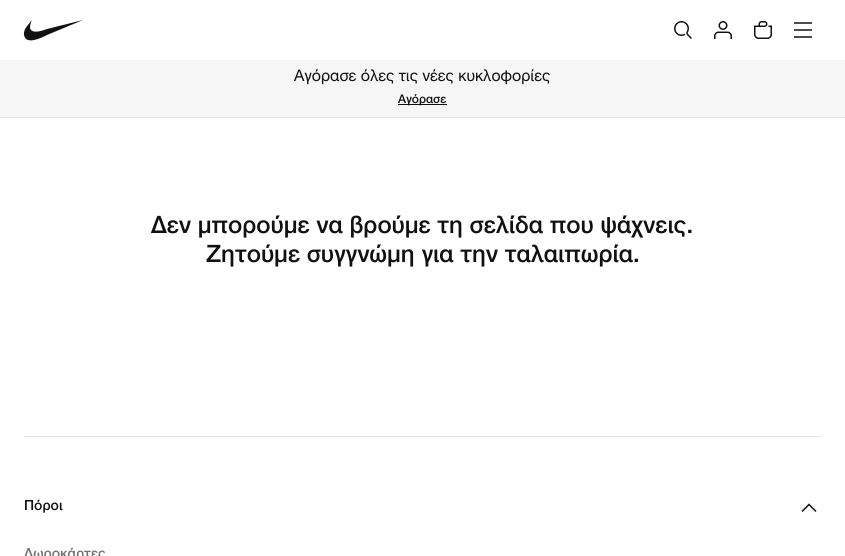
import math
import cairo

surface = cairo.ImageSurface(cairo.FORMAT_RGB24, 845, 556)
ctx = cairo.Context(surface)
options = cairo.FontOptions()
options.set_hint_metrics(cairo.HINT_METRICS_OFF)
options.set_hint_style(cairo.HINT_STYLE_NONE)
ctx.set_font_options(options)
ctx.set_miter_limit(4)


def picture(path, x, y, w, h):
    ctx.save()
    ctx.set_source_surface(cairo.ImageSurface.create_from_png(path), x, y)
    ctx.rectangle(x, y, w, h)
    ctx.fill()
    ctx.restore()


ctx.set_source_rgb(1, 1, 1)
ctx.paint()
ctx.set_source_rgb(0.067, 0.067, 0.067)
ctx.set_fill_rule(cairo.FILL_RULE_EVEN_ODD)
ctx.new_path()
ctx.move_to(83, 20)
ctx.line_to(47, 35)
ctx.curve_to(43, 37, 26, 46, 24, 35)
ctx.curve_to(23, 29, 29, 24, 32, 20)
ctx.curve_to(31, 22, 30, 25, 30, 28)
ctx.curve_to(32, 35, 44, 30, 47, 29)
ctx.close_path()
ctx.fill()
picture("img1.png", 674, 21, 18, 18)
picture("img2.png", 714, 21, 18, 18)
picture("img3.png", 754, 21, 18, 18)
ctx.new_path()
ctx.move_to(812, 23)
ctx.line_to(794, 23)
ctx.move_to(812, 30)
ctx.line_to(794, 30)
ctx.move_to(812, 37)
ctx.line_to(794, 37)
ctx.set_line_width(1.5)
ctx.stroke()
ctx.set_source_rgb(0.961, 0.961, 0.961)
ctx.rectangle(0, 60, 845, 57)
ctx.fill()
ctx.set_source_rgb(0.898, 0.898, 0.898)
ctx.rectangle(0, 117, 845, 1)
ctx.fill()
ctx.select_font_face("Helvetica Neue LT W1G")
ctx.set_font_size(16)
ctx.set_source_rgb(0.067, 0.067, 0.067)
ctx.move_to(294, 81)
ctx.show_text("Αγόρασε όλες τις νέες κυκλοφορίες")
ctx.rectangle(398, 104, 49, 1)
ctx.fill()
ctx.select_font_face("Helvetica Neue LT W1G Medium")
ctx.set_font_size(12)
ctx.move_to(398, 103)
ctx.show_text("Αγόρασε")
ctx.set_font_size(24)
ctx.move_to(151, 233)
ctx.show_text("Δεν μπορούμε να βρούμε τη σελίδα που ψάχνεις.")
ctx.move_to(206, 262)
ctx.show_text("Ζητούμε συγγνώμη για την ταλαιπωρία.")
ctx.set_source_rgb(0.898, 0.898, 0.898)
ctx.rectangle(24, 436, 797, 1)
ctx.fill()
ctx.set_font_size(14)
ctx.set_source_rgb(0.067, 0.067, 0.067)
ctx.move_to(24, 510)
ctx.show_text("Πόροι")
ctx.new_path()
ctx.move_to(802, 511.5)
ctx.line_to(809, 504.5)
ctx.line_to(816, 511.5)
ctx.stroke()
ctx.set_source_rgb(0.439, 0.439, 0.447)
ctx.move_to(24, 558)
ctx.show_text("Δωροκάρτες")
surface.write_to_png("page.png")
